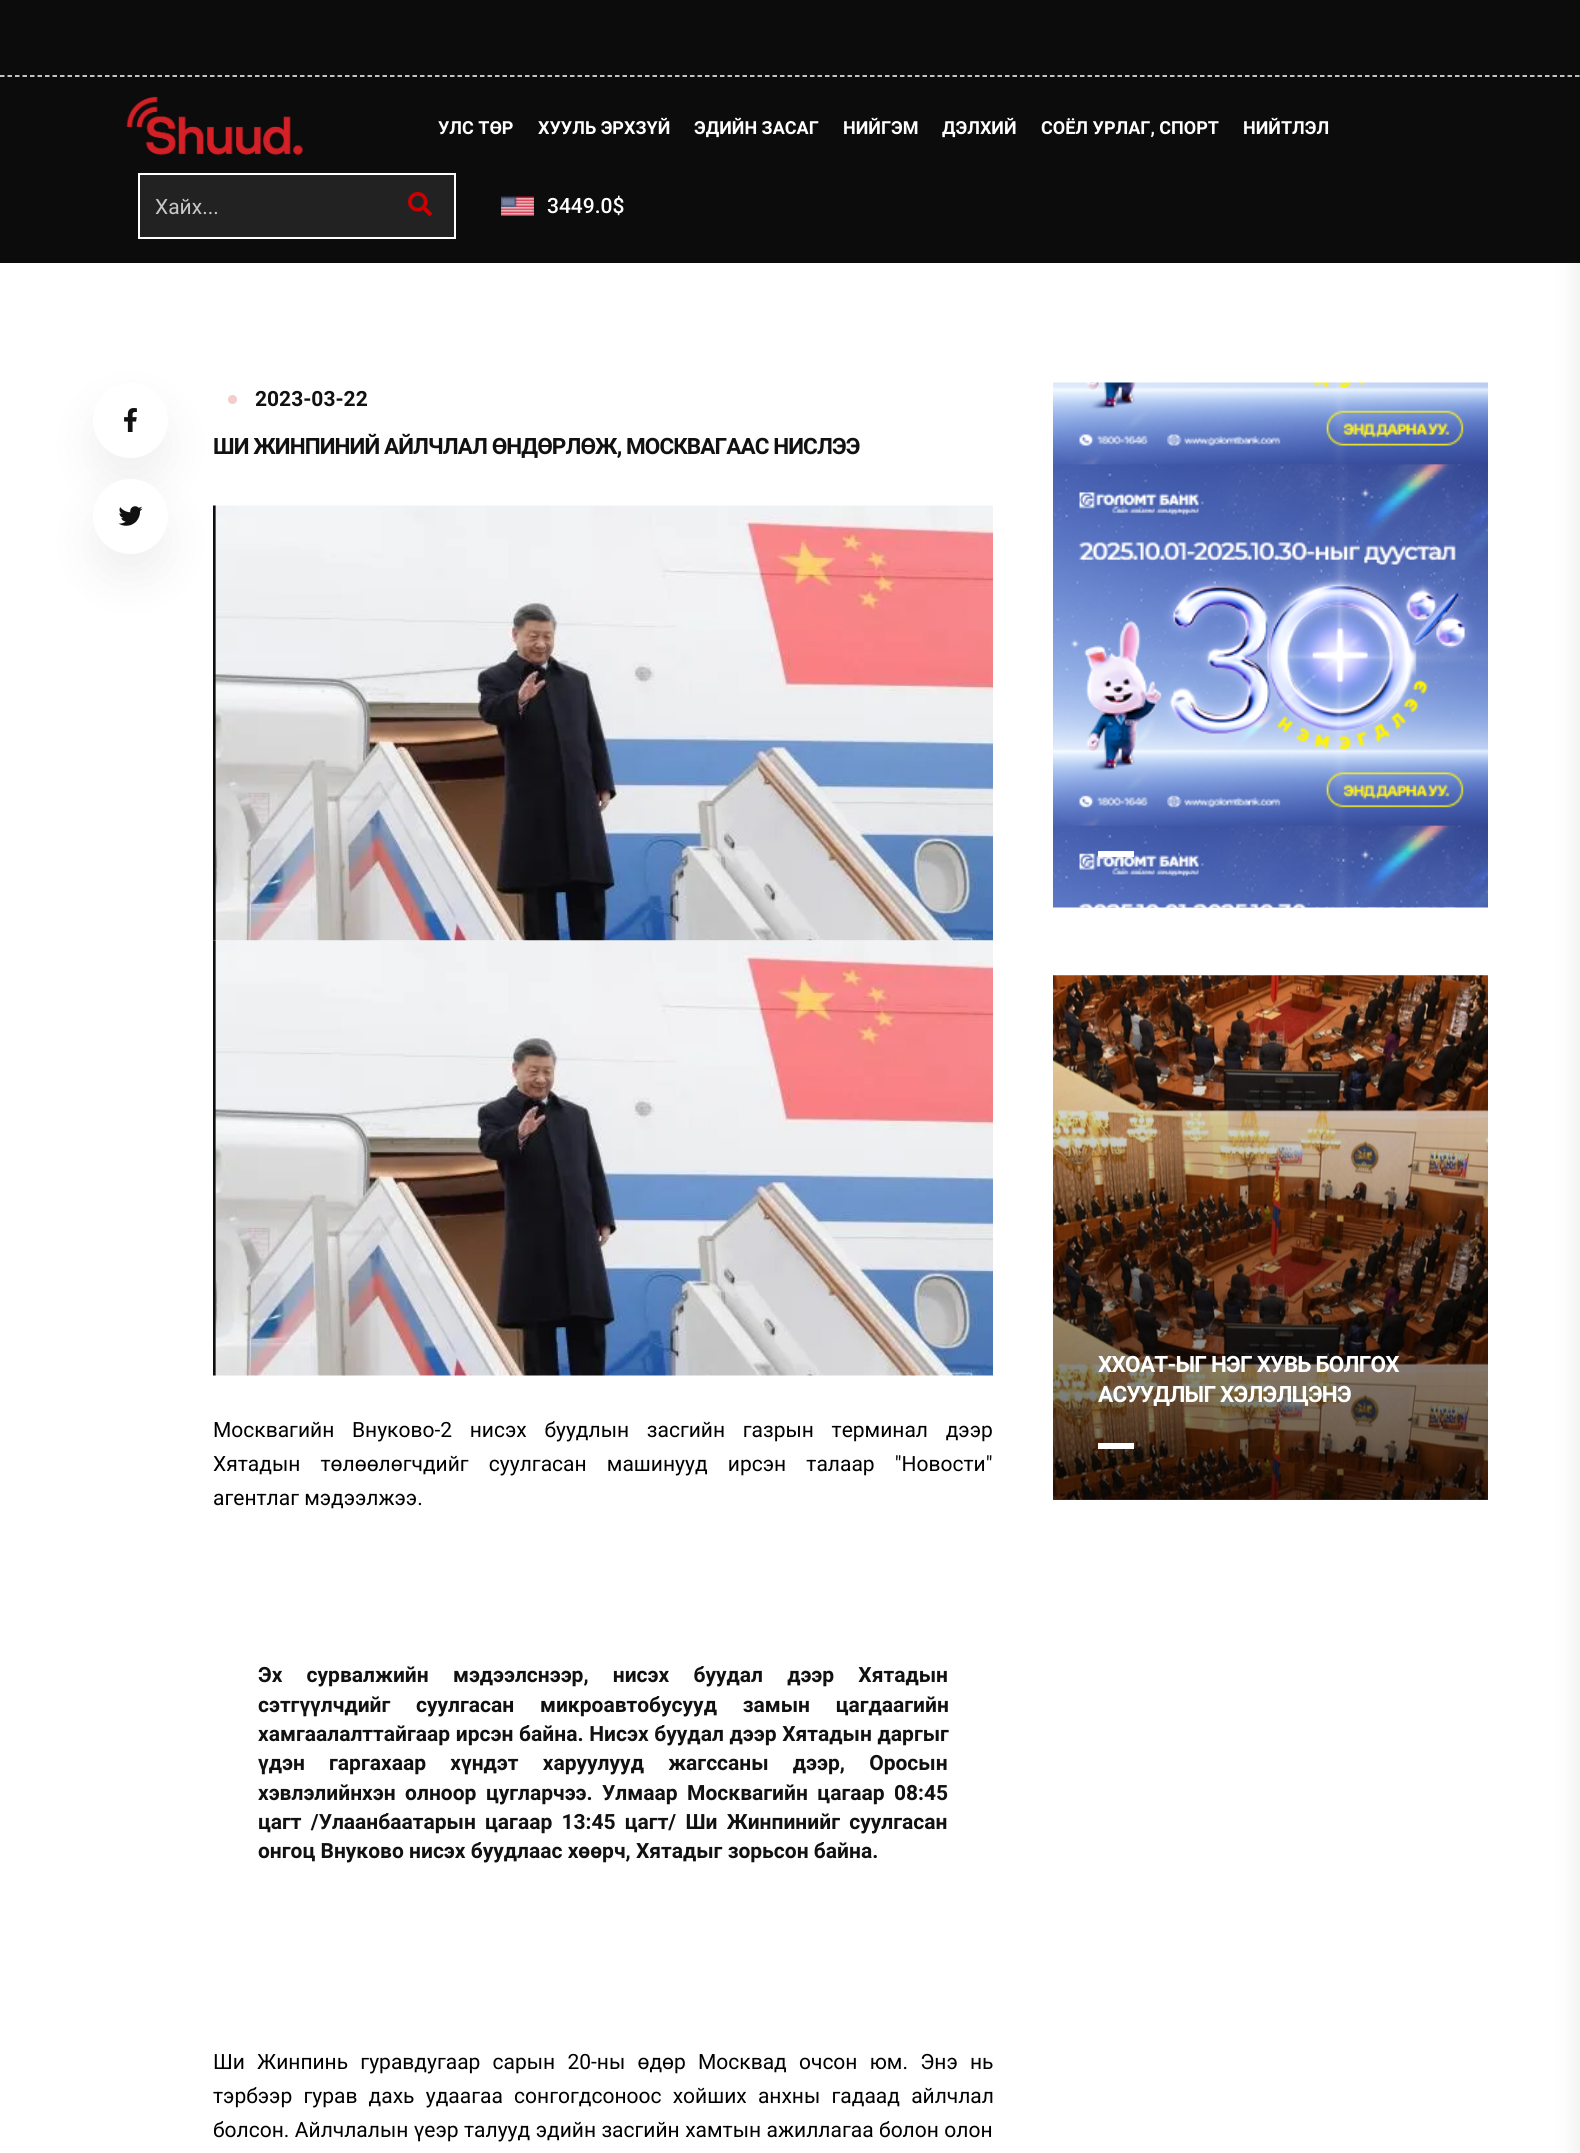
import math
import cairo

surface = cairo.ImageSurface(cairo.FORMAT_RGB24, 1580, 2153)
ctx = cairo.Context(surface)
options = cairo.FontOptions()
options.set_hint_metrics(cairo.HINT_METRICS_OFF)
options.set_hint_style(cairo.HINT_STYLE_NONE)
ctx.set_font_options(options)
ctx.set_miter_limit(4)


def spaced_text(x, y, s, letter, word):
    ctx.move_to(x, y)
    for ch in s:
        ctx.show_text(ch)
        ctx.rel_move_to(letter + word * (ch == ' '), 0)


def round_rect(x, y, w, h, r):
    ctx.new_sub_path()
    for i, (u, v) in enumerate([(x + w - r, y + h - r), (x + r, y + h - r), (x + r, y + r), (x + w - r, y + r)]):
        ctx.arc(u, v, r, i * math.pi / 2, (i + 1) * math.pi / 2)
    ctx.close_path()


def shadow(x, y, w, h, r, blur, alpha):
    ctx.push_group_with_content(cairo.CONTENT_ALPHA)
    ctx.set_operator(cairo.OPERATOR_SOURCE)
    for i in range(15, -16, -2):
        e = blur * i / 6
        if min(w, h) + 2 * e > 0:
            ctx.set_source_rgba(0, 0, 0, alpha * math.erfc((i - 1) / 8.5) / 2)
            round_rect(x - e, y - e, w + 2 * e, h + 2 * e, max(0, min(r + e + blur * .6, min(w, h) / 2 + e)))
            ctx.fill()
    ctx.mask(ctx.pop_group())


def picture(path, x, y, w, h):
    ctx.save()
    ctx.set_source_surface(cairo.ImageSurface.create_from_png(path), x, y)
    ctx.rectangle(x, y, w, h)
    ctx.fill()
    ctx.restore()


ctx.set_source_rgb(1, 1, 1)
ctx.paint()
ctx.set_source_rgb(0.047, 0.047, 0.047)
ctx.rectangle(0, 0, 1580, 263)
ctx.fill()
ctx.new_path()
ctx.move_to(0, 76)
ctx.line_to(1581, 76)
ctx.set_source_rgb(1, 1, 1)
ctx.set_line_width(1.5)
ctx.set_dash([4.5, 3])
ctx.stroke()
picture("img1.png", 126, 96, 177, 59)
ctx.select_font_face("Roboto", cairo.FONT_SLANT_NORMAL, cairo.FONT_WEIGHT_BOLD)
ctx.set_font_size(18)
ctx.move_to(438, 134)
ctx.show_text("УЛС ТӨР")
ctx.move_to(538, 134)
ctx.show_text("ХУУЛЬ ЭРХЗҮЙ")
ctx.move_to(694, 134)
ctx.show_text("ЭДИЙН ЗАСАГ")
ctx.move_to(843, 134)
ctx.show_text("НИЙГЭМ")
ctx.move_to(942, 134)
ctx.show_text("ДЭЛХИЙ")
ctx.move_to(1041, 134)
ctx.show_text("СОЁЛ УРЛАГ, СПОРТ")
ctx.move_to(1243, 134)
ctx.show_text("НИЙТЛЭЛ")
ctx.set_source_rgb(0.133, 0.133, 0.133)
ctx.rectangle(139, 174, 316, 64)
ctx.fill_preserve()
ctx.set_source_rgb(1, 1, 1)
ctx.set_line_width(2)
ctx.set_dash([])
ctx.stroke()
ctx.select_font_face("Roboto")
ctx.set_font_size(21)
ctx.set_source_rgb(0.78, 0.78, 0.78)
ctx.move_to(155, 214)
ctx.show_text("Хайх...")
picture("img2.png", 408, 192, 24, 24)
picture("img3.png", 501, 196, 33, 20)
ctx.select_font_face("Roboto Medium")
ctx.set_source_rgb(1, 1, 1)
ctx.move_to(547, 213)
ctx.show_text("3449.0$")
ctx.set_source_rgb(0, 0, 0)
shadow(1572, 0, 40, 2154, 0, 10.5, 0.06)
picture("img6.png", 213, 505, 780, 436)
shadow(93, 407, 75, 75, 37.5, 24, 0.06)
ctx.set_source_rgb(1, 1, 1)
ctx.arc(130.5, 420.5, 37.5, 0, 2 * math.pi)
ctx.fill()
ctx.set_source_rgb(0, 0, 0)
shadow(93, 503, 75, 75, 37.5, 24, 0.06)
picture("img4.png", 124, 408, 13, 24)
ctx.set_source_rgb(1, 1, 1)
ctx.arc(130.5, 516.5, 37.5, 0, 2 * math.pi)
ctx.fill()
picture("img5.png", 118, 506, 25, 20)
ctx.set_source_rgb(0.961, 0.8, 0.8)
ctx.arc(232.5, 399.5, 4.5, 0, 2 * math.pi)
ctx.fill()
ctx.select_font_face("Roboto", cairo.FONT_SLANT_NORMAL, cairo.FONT_WEIGHT_BOLD)
ctx.set_source_rgb(0.067, 0.067, 0.067)
ctx.move_to(255, 406)
ctx.show_text("2023-03-22")
ctx.set_font_size(22.5)
spaced_text(213, 454, "ШИ ЖИНПИНИЙ АЙЛЧЛАЛ ӨНДӨРЛӨЖ, МОСКВАГААС НИСЛЭЭ", -0.9, 0)
picture("img7.png", 213, 940, 780, 436)
ctx.select_font_face("Roboto")
ctx.set_font_size(21)
ctx.set_source_rgb(0, 0, 0)
spaced_text(213, 1437, "Москвагийн Внуково-2 нисэх буудлын засгийн газрын терминал дээр", 0, 12.5)
spaced_text(213, 1471, "Хятадын төлөөлөгчдийг суулгасан машинууд ирсэн талаар \"Новости\"", 0, 15)
ctx.move_to(213, 1505)
ctx.show_text("агентлаг мэдээлжээ.")
ctx.select_font_face("Roboto", cairo.FONT_SLANT_NORMAL, cairo.FONT_WEIGHT_BOLD)
ctx.set_source_rgb(0.067, 0.067, 0.067)
spaced_text(258, 1682, "Эх сурвалжийн мэдээлснээр, нисэх буудал дээр Хятадын", 0, 19)
spaced_text(258, 1712, "сэтгүүлчдийг суулгасан микроавтобусууд замын цагдаагийн", 0, 20.5)
spaced_text(258, 1741, "хамгаалалттайгаар ирсэн байна. Нисэх буудал дээр Хятадын даргыг", 0, 0.5)
spaced_text(258, 1770, "үдэн гаргахаар хүндэт харуулууд жагссаны дээр, Оросын", 0, 19)
spaced_text(258, 1800, "хэвлэлийнхэн олноор цугларчээ. Улмаар Москвагийн цагаар 08:45", 0, 4.25)
spaced_text(258, 1829, "цагт /Улаанбаатарын цагаар 13:45 цагт/ Ши Жинпинийг суулгасан", 0, 4)
ctx.move_to(258, 1858)
ctx.show_text("онгоц Внуково нисэх буудлаас хөөрч, Хятадыг зорьсон байна.")
ctx.select_font_face("Roboto")
ctx.set_source_rgb(0, 0, 0)
spaced_text(213, 2069, "Ши Жинпинь гуравдугаар сарын 20-ны өдөр Москвад очсон юм. Энэ нь", 0, 7)
spaced_text(213, 2103, "тэрбээр гурав дахь удаагаа сонгогдсоноос хойших анхны гадаад айлчлал", 0, 6)
spaced_text(213, 2137, "болсон. Айлчлалын үеэр талууд эдийн засгийн хамтын ажиллагаа болон олон", 0, 0.25)
picture("img8.png", 1053, 382, 435, 526)
ctx.set_source_rgb(1, 1, 1)
ctx.rectangle(1098, 851, 36, 6)
ctx.fill()
picture("img9.png", 1053, 975, 435, 525)
gradient = cairo.LinearGradient(1271, 1500, 1271, 975)
gradient.add_color_stop_rgba(0, 0, 0, 0, 0.63)
gradient.add_color_stop_rgba(1, 0, 0, 0, 0)
ctx.set_source(gradient)
ctx.rectangle(1053, 993, 435, 507)
ctx.fill()
ctx.select_font_face("Roboto", cairo.FONT_SLANT_NORMAL, cairo.FONT_WEIGHT_BOLD)
ctx.set_font_size(22.5)
ctx.set_source_rgb(1, 1, 1)
spaced_text(1098, 1372, "ХХОАТ-ЫГ НЭГ ХУВЬ БОЛГОХ", -0.75, 0)
spaced_text(1098, 1402, "АСУУДЛЫГ ХЭЛЭЛЦЭНЭ", -0.75, 0)
ctx.rectangle(1098, 1443, 36, 6)
ctx.fill()
surface.write_to_png("page.png")
